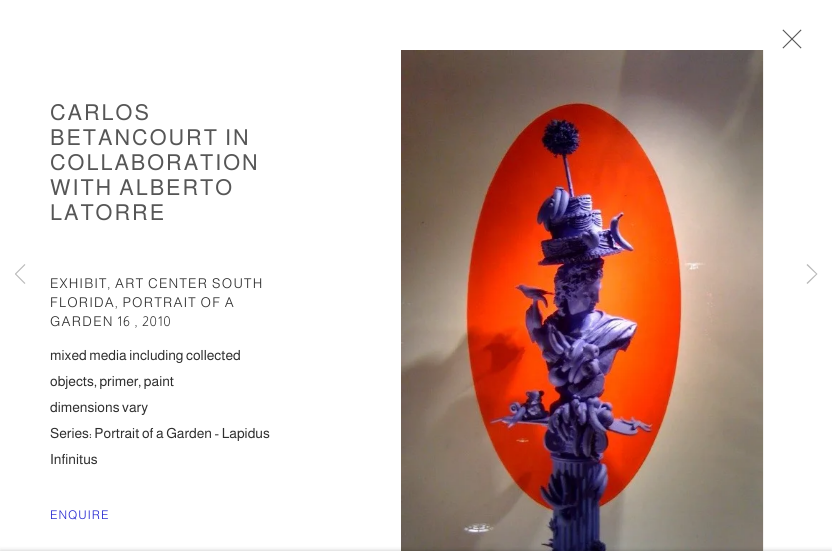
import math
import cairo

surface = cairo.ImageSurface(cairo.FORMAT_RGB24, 832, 551)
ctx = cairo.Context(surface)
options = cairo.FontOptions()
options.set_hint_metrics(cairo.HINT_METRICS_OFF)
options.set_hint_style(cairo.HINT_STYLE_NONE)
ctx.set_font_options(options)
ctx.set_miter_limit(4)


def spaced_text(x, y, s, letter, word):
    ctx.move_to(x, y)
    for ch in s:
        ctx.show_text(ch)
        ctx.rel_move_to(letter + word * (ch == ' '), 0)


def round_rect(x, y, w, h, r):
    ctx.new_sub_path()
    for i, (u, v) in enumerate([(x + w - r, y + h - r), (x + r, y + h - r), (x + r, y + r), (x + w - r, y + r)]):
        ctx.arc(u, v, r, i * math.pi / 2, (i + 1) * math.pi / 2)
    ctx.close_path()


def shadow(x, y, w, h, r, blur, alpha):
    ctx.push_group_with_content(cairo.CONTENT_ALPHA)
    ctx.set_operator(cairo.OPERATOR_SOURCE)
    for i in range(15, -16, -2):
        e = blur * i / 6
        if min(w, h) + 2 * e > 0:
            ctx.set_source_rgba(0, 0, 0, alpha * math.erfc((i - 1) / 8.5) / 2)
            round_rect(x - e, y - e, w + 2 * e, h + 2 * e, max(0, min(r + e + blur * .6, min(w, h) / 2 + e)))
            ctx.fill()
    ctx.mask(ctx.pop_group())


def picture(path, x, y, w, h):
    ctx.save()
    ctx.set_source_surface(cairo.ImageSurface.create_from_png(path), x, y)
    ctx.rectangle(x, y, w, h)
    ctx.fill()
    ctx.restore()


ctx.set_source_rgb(1, 1, 1)
ctx.paint()
picture("img1.png", 782, 29, 20, 20)
ctx.select_font_face("Almarai")
ctx.set_font_size(22)
ctx.set_source_rgb(0.337, 0.337, 0.337)
spaced_text(50, 120, "CARLOS", 2, 0)
spaced_text(50, 145, "BETANCOURT IN", 2, 0)
spaced_text(50, 170, "COLLABORATION", 2, 0)
spaced_text(50, 195, "WITH ALBERTO", 2, 0)
spaced_text(50, 220, "LATORRE", 2, 0)
ctx.select_font_face("Almarai Light")
ctx.set_font_size(13.5)
ctx.set_source_rgb(0.184, 0.184, 0.184)
spaced_text(50, 288, "EXHIBIT, ART CENTER SOUTH", 1.25, 0)
spaced_text(50, 307, "FLORIDA, PORTRAIT OF A", 1.25, 0)
spaced_text(50, 326, "GARDEN 16 , 2010", 1.25, 0)
ctx.select_font_face("Almarai")
ctx.set_font_size(14)
ctx.move_to(50, 360)
ctx.show_text("mixed media including collected")
ctx.move_to(50, 386)
ctx.show_text("objects, primer, paint")
ctx.move_to(50, 412)
ctx.show_text("dimensions vary")
ctx.move_to(50, 438)
ctx.show_text("Series: Portrait of a Garden - Lapidus")
ctx.move_to(50, 464)
ctx.show_text("Infinitus")
ctx.select_font_face("Almarai Light")
ctx.set_font_size(12)
ctx.set_source_rgb(0.145, 0.153, 0.816)
spaced_text(50, 519, "ENQUIRE", 1, 0)
picture("img2.png", 401, 50, 363, 501)
picture("img3.png", 15, 264, 11, 20)
ctx.set_source_rgb(0.725, 0.725, 0.725)
ctx.new_path()
ctx.move_to(817.5, 274)
ctx.line_to(807.5, 264)
ctx.line_to(806.5, 265)
ctx.line_to(816, 274)
ctx.line_to(806.5, 283)
ctx.line_to(807.5, 284)
ctx.close_path()
ctx.fill()
ctx.set_source_rgb(0, 0, 0)
shadow(0, 551, 832, 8, 0, 2.5, 0.23)
surface.write_to_png("page.png")
